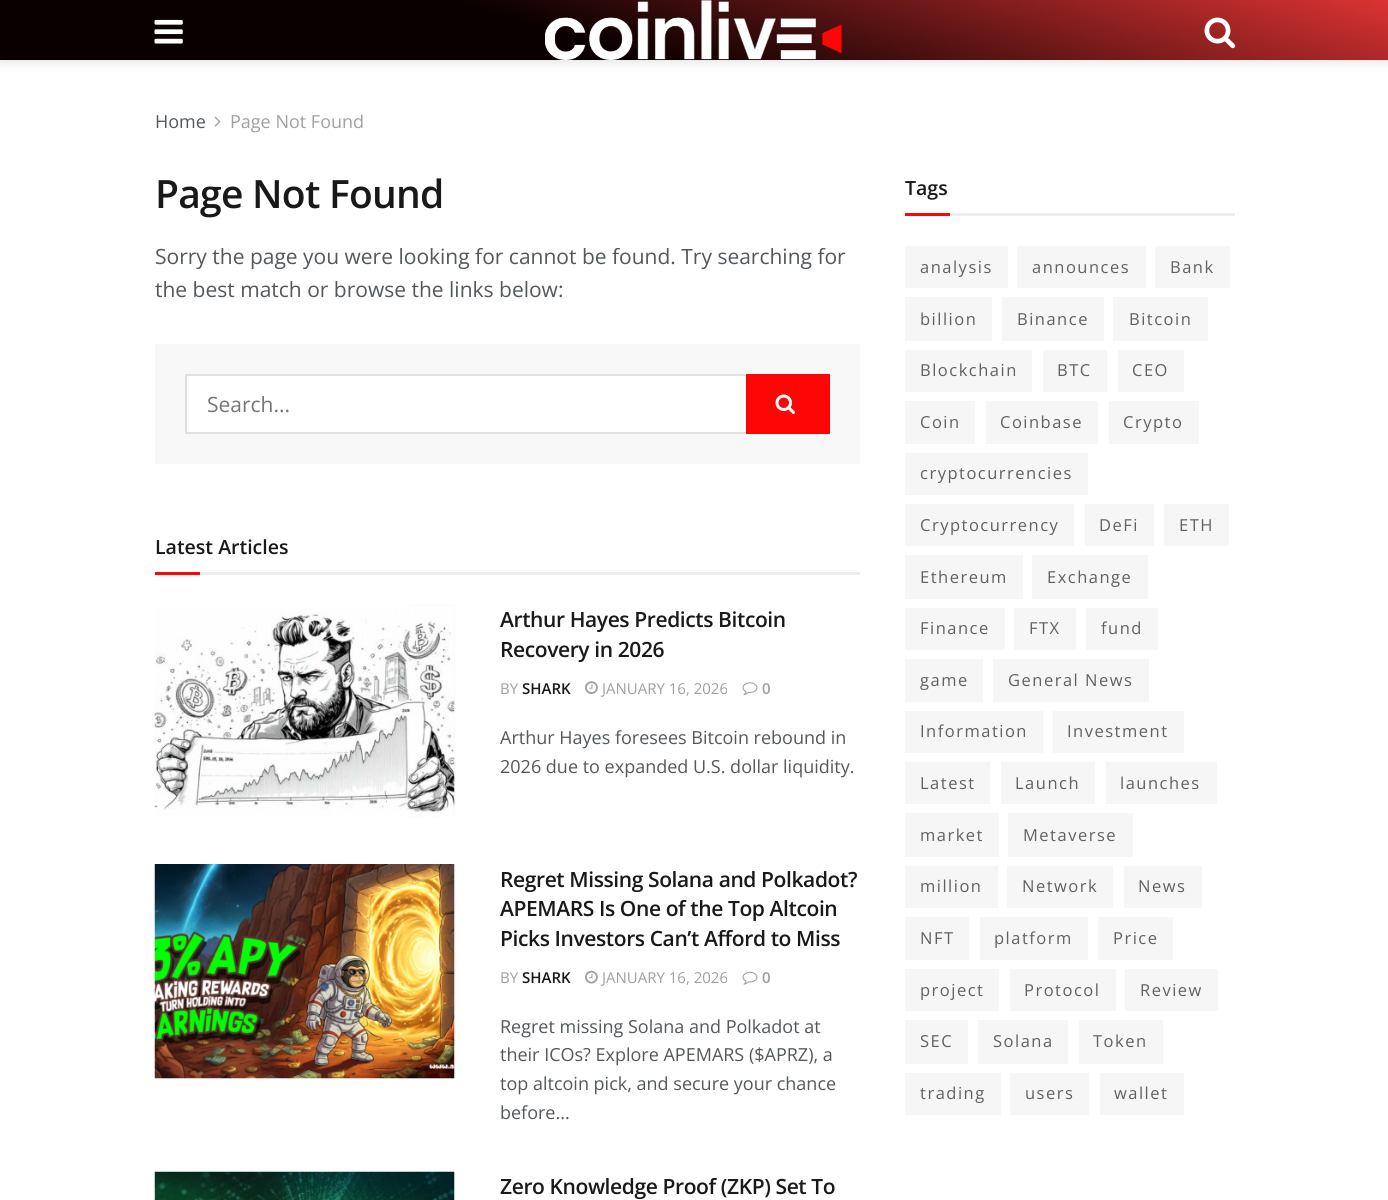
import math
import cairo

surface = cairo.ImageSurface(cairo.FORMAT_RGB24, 1388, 1200)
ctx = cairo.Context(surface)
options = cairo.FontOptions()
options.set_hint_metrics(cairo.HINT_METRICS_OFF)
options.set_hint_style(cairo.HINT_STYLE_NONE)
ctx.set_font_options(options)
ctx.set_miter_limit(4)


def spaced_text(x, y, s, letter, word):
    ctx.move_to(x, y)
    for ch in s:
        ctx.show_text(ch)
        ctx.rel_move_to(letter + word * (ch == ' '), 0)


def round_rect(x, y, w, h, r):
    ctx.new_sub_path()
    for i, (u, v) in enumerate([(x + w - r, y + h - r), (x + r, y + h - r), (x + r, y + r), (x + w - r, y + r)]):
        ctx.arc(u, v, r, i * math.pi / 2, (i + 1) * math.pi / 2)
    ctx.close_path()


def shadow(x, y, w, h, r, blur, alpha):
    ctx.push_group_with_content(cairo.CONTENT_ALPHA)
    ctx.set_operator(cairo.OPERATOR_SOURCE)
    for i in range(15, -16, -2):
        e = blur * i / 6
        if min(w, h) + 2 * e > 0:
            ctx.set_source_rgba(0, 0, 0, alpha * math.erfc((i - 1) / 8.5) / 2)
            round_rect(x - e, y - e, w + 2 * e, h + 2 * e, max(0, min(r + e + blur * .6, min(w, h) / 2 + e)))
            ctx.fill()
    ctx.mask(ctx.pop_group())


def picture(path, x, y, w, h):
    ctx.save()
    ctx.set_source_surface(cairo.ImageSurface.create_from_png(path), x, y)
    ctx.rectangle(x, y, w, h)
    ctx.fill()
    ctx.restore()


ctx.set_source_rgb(1, 1, 1)
ctx.paint()
ctx.set_source_rgb(0, 0, 0)
shadow(0, 3, 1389, 60, 0, 4.5, 0.1)
gradient = cairo.LinearGradient(627, 252, 762, -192)
gradient.add_color_stop_rgba(0.41, 0.039, 0, 0, 1)
gradient.add_color_stop_rgba(1, 0.867, 0.2, 0.2, 1)
ctx.set_source(gradient)
ctx.rectangle(0, 0, 1388, 60)
ctx.fill()
picture("img1.png", 154, 19, 29, 25)
picture("img2.png", 545, 0, 297, 60)
picture("img3.png", 1204, 17, 32, 32)
ctx.select_font_face("Open Sans")
ctx.set_font_size(18)
ctx.set_source_rgb(0.325, 0.345, 0.361)
ctx.move_to(155, 128)
ctx.show_text("Home")
picture("img4.png", 214, 116, 7, 11)
ctx.set_source_rgb(0.627, 0.627, 0.627)
ctx.move_to(230, 128)
ctx.show_text("Page Not Found")
ctx.select_font_face("Open Sans SemiBold")
ctx.set_font_size(39)
ctx.set_source_rgb(0.098, 0.098, 0.098)
spaced_text(155, 208, "Page Not Found", -0.75, 0)
ctx.select_font_face("Open Sans")
ctx.set_font_size(21)
ctx.set_source_rgb(0.325, 0.345, 0.361)
ctx.move_to(155, 264)
ctx.show_text("Sorry the page you were looking for cannot be found. Try searching for")
ctx.move_to(155, 297)
ctx.show_text("the best match or browse the links below:")
ctx.set_source_rgb(0.969, 0.969, 0.969)
ctx.rectangle(155, 344, 705, 120)
ctx.fill()
ctx.set_source_rgb(1, 1, 1)
ctx.rectangle(187, 376, 559, 56)
ctx.fill()
ctx.rectangle(186, 375, 643, 58)
ctx.set_source_rgb(0.878, 0.878, 0.878)
ctx.stroke()
ctx.set_source_rgb(0.459, 0.459, 0.459)
ctx.move_to(207, 412)
ctx.show_text("Search...")
ctx.set_source_rgb(1, 0.024, 0.024)
ctx.rectangle(746, 374, 84, 60)
ctx.fill()
picture("img5.png", 775, 394, 20, 20)
ctx.set_source_rgb(0.933, 0.933, 0.933)
ctx.rectangle(200, 572, 660, 3)
ctx.fill()
ctx.select_font_face("Open Sans SemiBold")
ctx.set_font_size(19.5)
ctx.set_source_rgb(0.098, 0.098, 0.098)
ctx.move_to(155, 554)
ctx.show_text("Latest Articles")
ctx.set_source_rgb(1, 0.024, 0.024)
ctx.rectangle(155, 572, 45, 3)
ctx.fill()
ctx.set_source_rgb(0.969, 0.969, 0.969)
ctx.rectangle(454, 605, 1, 214)
ctx.fill()
picture("img6.png", 407, 604, 47, 1)
picture("img7.png", 154, 605, 301, 214)
ctx.set_font_size(21)
ctx.set_source_rgb(0.098, 0.098, 0.098)
spaced_text(500, 627, "Arthur Hayes Predicts Bitcoin", -0.4, 0)
spaced_text(500, 657, "Recovery in 2026", -0.4, 0)
ctx.select_font_face("Open Sans")
ctx.set_font_size(15)
ctx.set_source_rgb(0.627, 0.627, 0.627)
ctx.move_to(500, 694)
ctx.show_text("BY")
ctx.select_font_face("Open Sans SemiBold")
ctx.set_source_rgb(0.098, 0.098, 0.098)
ctx.move_to(522, 694)
ctx.show_text("SHARK")
picture("img8.png", 585, 681, 13, 13)
ctx.select_font_face("Open Sans")
ctx.set_source_rgb(0.627, 0.627, 0.627)
ctx.move_to(602, 694)
ctx.show_text("JANUARY 16, 2026")
picture("img9.png", 742, 682, 16, 14)
ctx.select_font_face("Open Sans SemiBold")
ctx.move_to(762, 694)
ctx.show_text("0")
ctx.select_font_face("Open Sans")
ctx.set_font_size(18)
ctx.set_source_rgb(0.325, 0.345, 0.361)
ctx.move_to(500, 744)
ctx.show_text("Arthur Hayes foresees Bitcoin rebound in")
ctx.move_to(500, 773)
ctx.show_text("2026 due to expanded U.S. dollar liquidity.")
ctx.set_source_rgb(0.969, 0.969, 0.969)
ctx.rectangle(155, 864, 300, 215)
ctx.fill()
picture("img10.png", 154, 864, 301, 215)
ctx.select_font_face("Open Sans SemiBold")
ctx.set_font_size(21)
ctx.set_source_rgb(0.098, 0.098, 0.098)
spaced_text(500, 887, "Regret Missing Solana and Polkadot?", -0.4, 0)
spaced_text(500, 916, "APEMARS Is One of the Top Altcoin", -0.4, 0)
spaced_text(500, 946, "Picks Investors Can’t Afford to Miss", -0.4, 0)
ctx.select_font_face("Open Sans")
ctx.set_font_size(15)
ctx.set_source_rgb(0.627, 0.627, 0.627)
ctx.move_to(500, 983)
ctx.show_text("BY")
ctx.select_font_face("Open Sans SemiBold")
ctx.set_source_rgb(0.098, 0.098, 0.098)
ctx.move_to(522, 983)
ctx.show_text("SHARK")
picture("img11.png", 585, 970, 13, 14)
ctx.select_font_face("Open Sans")
ctx.set_source_rgb(0.627, 0.627, 0.627)
ctx.move_to(602, 983)
ctx.show_text("JANUARY 16, 2026")
picture("img12.png", 742, 971, 16, 14)
ctx.select_font_face("Open Sans SemiBold")
ctx.move_to(762, 983)
ctx.show_text("0")
ctx.select_font_face("Open Sans")
ctx.set_font_size(18)
ctx.set_source_rgb(0.325, 0.345, 0.361)
ctx.move_to(500, 1033)
ctx.show_text("Regret missing Solana and Polkadot at")
ctx.move_to(500, 1061)
ctx.show_text("their ICOs? Explore APEMARS ($APRZ), a")
ctx.move_to(500, 1090)
ctx.show_text("top altcoin pick, and secure your chance")
ctx.move_to(500, 1119)
ctx.show_text("before...")
ctx.set_source_rgb(0.969, 0.969, 0.969)
ctx.rectangle(454, 1172, 1, 28)
ctx.fill()
picture("img6.png", 407, 1171, 47, 1)
picture("img13.png", 154, 1171, 301, 29)
ctx.select_font_face("Open Sans SemiBold")
ctx.set_font_size(21)
ctx.set_source_rgb(0.098, 0.098, 0.098)
spaced_text(500, 1194, "Zero Knowledge Proof (ZKP) Set To", -0.4, 0)
ctx.set_source_rgb(0.933, 0.933, 0.933)
ctx.rectangle(950, 213, 285, 3)
ctx.fill()
ctx.set_font_size(19.5)
ctx.set_source_rgb(0.098, 0.098, 0.098)
ctx.move_to(905, 195)
ctx.show_text("Tags")
ctx.set_source_rgb(1, 0.024, 0.024)
ctx.rectangle(905, 213, 45, 3)
ctx.fill()
ctx.set_source_rgb(0.961, 0.961, 0.961)
ctx.rectangle(905, 246, 103, 42)
ctx.fill()
ctx.select_font_face("Open Sans")
ctx.set_font_size(16.5)
ctx.set_source_rgb(0.38, 0.38, 0.38)
spaced_text(920, 273, "analysis", 1.5, 0)
ctx.set_source_rgb(0.961, 0.961, 0.961)
ctx.rectangle(1017, 246, 129, 42)
ctx.fill()
ctx.set_source_rgb(0.38, 0.38, 0.38)
spaced_text(1032, 273, "announces", 1.5, 0)
ctx.set_source_rgb(0.961, 0.961, 0.961)
ctx.rectangle(1155, 246, 75, 42)
ctx.fill()
ctx.set_source_rgb(0.38, 0.38, 0.38)
spaced_text(1170, 273, "Bank", 1.5, 0)
ctx.set_source_rgb(0.961, 0.961, 0.961)
ctx.rectangle(905, 297, 87, 44)
ctx.fill()
ctx.set_source_rgb(0.38, 0.38, 0.38)
spaced_text(920, 325, "billion", 1.5, 0)
ctx.set_source_rgb(0.961, 0.961, 0.961)
ctx.rectangle(1002, 297, 102, 44)
ctx.fill()
ctx.set_source_rgb(0.38, 0.38, 0.38)
spaced_text(1017, 325, "Binance", 1.5, 0)
ctx.set_source_rgb(0.961, 0.961, 0.961)
ctx.rectangle(1113, 297, 95, 44)
ctx.fill()
ctx.set_source_rgb(0.38, 0.38, 0.38)
spaced_text(1129, 325, "Bitcoin", 1.5, 0)
ctx.set_source_rgb(0.961, 0.961, 0.961)
ctx.rectangle(905, 350, 127, 42)
ctx.fill()
ctx.set_source_rgb(0.38, 0.38, 0.38)
spaced_text(920, 376, "Blockchain", 1.5, 0)
ctx.set_source_rgb(0.961, 0.961, 0.961)
ctx.rectangle(1043, 350, 64, 42)
ctx.fill()
ctx.set_source_rgb(0.38, 0.38, 0.38)
spaced_text(1057, 376, "BTC", 1.5, 0)
ctx.set_source_rgb(0.961, 0.961, 0.961)
ctx.rectangle(1118, 350, 66, 42)
ctx.fill()
ctx.set_source_rgb(0.38, 0.38, 0.38)
spaced_text(1132, 376, "CEO", 1.5, 0)
ctx.set_source_rgb(0.961, 0.961, 0.961)
ctx.rectangle(905, 401, 70, 43)
ctx.fill()
ctx.set_source_rgb(0.38, 0.38, 0.38)
spaced_text(920, 428, "Coin", 1.5, 0)
ctx.set_source_rgb(0.961, 0.961, 0.961)
ctx.rectangle(986, 401, 112, 43)
ctx.fill()
ctx.set_source_rgb(0.38, 0.38, 0.38)
spaced_text(1000, 428, "Coinbase", 1.5, 0)
ctx.set_source_rgb(0.961, 0.961, 0.961)
ctx.rectangle(1109, 401, 90, 43)
ctx.fill()
ctx.set_source_rgb(0.38, 0.38, 0.38)
spaced_text(1123, 428, "Crypto", 1.5, 0)
ctx.set_source_rgb(0.961, 0.961, 0.961)
ctx.rectangle(905, 453, 183, 42)
ctx.fill()
ctx.set_source_rgb(0.38, 0.38, 0.38)
spaced_text(920, 479, "cryptocurrencies", 1.5, 0)
ctx.set_source_rgb(0.961, 0.961, 0.961)
ctx.rectangle(905, 504, 169, 42)
ctx.fill()
ctx.set_source_rgb(0.38, 0.38, 0.38)
spaced_text(920, 531, "Cryptocurrency", 1.5, 0)
ctx.set_source_rgb(0.961, 0.961, 0.961)
ctx.rectangle(1085, 504, 69, 42)
ctx.fill()
ctx.set_source_rgb(0.38, 0.38, 0.38)
spaced_text(1099, 531, "DeFi", 1.5, 0)
ctx.set_source_rgb(0.961, 0.961, 0.961)
ctx.rectangle(1164, 504, 65, 42)
ctx.fill()
ctx.set_source_rgb(0.38, 0.38, 0.38)
spaced_text(1179, 531, "ETH", 1.5, 0)
ctx.set_source_rgb(0.961, 0.961, 0.961)
ctx.rectangle(905, 555, 118, 44)
ctx.fill()
ctx.set_source_rgb(0.38, 0.38, 0.38)
spaced_text(920, 583, "Ethereum", 1.5, 0)
ctx.set_source_rgb(0.961, 0.961, 0.961)
ctx.rectangle(1032, 555, 116, 44)
ctx.fill()
ctx.set_source_rgb(0.38, 0.38, 0.38)
spaced_text(1047, 583, "Exchange", 1.5, 0)
ctx.set_source_rgb(0.961, 0.961, 0.961)
ctx.rectangle(905, 608, 100, 42)
ctx.fill()
ctx.set_source_rgb(0.38, 0.38, 0.38)
spaced_text(920, 634, "Finance", 1.5, 0)
ctx.set_source_rgb(0.961, 0.961, 0.961)
ctx.rectangle(1014, 608, 62, 42)
ctx.fill()
ctx.set_source_rgb(0.38, 0.38, 0.38)
spaced_text(1029, 634, "FTX", 1.5, 0)
ctx.set_source_rgb(0.961, 0.961, 0.961)
ctx.rectangle(1086, 608, 72, 42)
ctx.fill()
ctx.set_source_rgb(0.38, 0.38, 0.38)
spaced_text(1101, 634, "fund", 1.5, 0)
ctx.set_source_rgb(0.961, 0.961, 0.961)
ctx.rectangle(905, 659, 78, 43)
ctx.fill()
ctx.set_source_rgb(0.38, 0.38, 0.38)
spaced_text(920, 686, "game", 1.5, 0)
ctx.set_source_rgb(0.961, 0.961, 0.961)
ctx.rectangle(993, 659, 156, 43)
ctx.fill()
ctx.set_source_rgb(0.38, 0.38, 0.38)
spaced_text(1008, 686, "General News", 1.5, 0)
ctx.set_source_rgb(0.961, 0.961, 0.961)
ctx.rectangle(905, 711, 138, 42)
ctx.fill()
ctx.set_source_rgb(0.38, 0.38, 0.38)
spaced_text(920, 737, "Information", 1.5, 0)
ctx.set_source_rgb(0.961, 0.961, 0.961)
ctx.rectangle(1053, 711, 131, 42)
ctx.fill()
ctx.set_source_rgb(0.38, 0.38, 0.38)
spaced_text(1067, 737, "Investment", 1.5, 0)
ctx.set_source_rgb(0.961, 0.961, 0.961)
ctx.rectangle(905, 762, 85, 42)
ctx.fill()
ctx.set_source_rgb(0.38, 0.38, 0.38)
spaced_text(920, 789, "Latest", 1.5, 0)
ctx.set_source_rgb(0.961, 0.961, 0.961)
ctx.rectangle(1001, 762, 94, 42)
ctx.fill()
ctx.set_source_rgb(0.38, 0.38, 0.38)
spaced_text(1015, 789, "Launch", 1.5, 0)
ctx.set_source_rgb(0.961, 0.961, 0.961)
ctx.rectangle(1106, 762, 111, 42)
ctx.fill()
ctx.set_source_rgb(0.38, 0.38, 0.38)
spaced_text(1120, 789, "launches", 1.5, 0)
ctx.set_source_rgb(0.961, 0.961, 0.961)
ctx.rectangle(905, 813, 94, 44)
ctx.fill()
ctx.set_source_rgb(0.38, 0.38, 0.38)
spaced_text(920, 841, "market", 1.5, 0)
ctx.set_source_rgb(0.961, 0.961, 0.961)
ctx.rectangle(1008, 813, 125, 44)
ctx.fill()
ctx.set_source_rgb(0.38, 0.38, 0.38)
spaced_text(1023, 841, "Metaverse", 1.5, 0)
ctx.set_source_rgb(0.961, 0.961, 0.961)
ctx.rectangle(905, 866, 93, 42)
ctx.fill()
ctx.set_source_rgb(0.38, 0.38, 0.38)
spaced_text(920, 892, "million", 1.5, 0)
ctx.set_source_rgb(0.961, 0.961, 0.961)
ctx.rectangle(1007, 866, 106, 42)
ctx.fill()
ctx.set_source_rgb(0.38, 0.38, 0.38)
spaced_text(1022, 892, "Network", 1.5, 0)
ctx.set_source_rgb(0.961, 0.961, 0.961)
ctx.rectangle(1124, 866, 78, 42)
ctx.fill()
ctx.set_source_rgb(0.38, 0.38, 0.38)
spaced_text(1138, 892, "News", 1.5, 0)
ctx.set_source_rgb(0.961, 0.961, 0.961)
ctx.rectangle(905, 917, 64, 43)
ctx.fill()
ctx.set_source_rgb(0.38, 0.38, 0.38)
spaced_text(920, 944, "NFT", 1.5, 0)
ctx.set_source_rgb(0.961, 0.961, 0.961)
ctx.rectangle(980, 917, 108, 43)
ctx.fill()
ctx.set_source_rgb(0.38, 0.38, 0.38)
spaced_text(994, 944, "platform", 1.5, 0)
ctx.set_source_rgb(0.961, 0.961, 0.961)
ctx.rectangle(1098, 917, 75, 43)
ctx.fill()
ctx.set_source_rgb(0.38, 0.38, 0.38)
spaced_text(1113, 944, "Price", 1.5, 0)
ctx.set_source_rgb(0.961, 0.961, 0.961)
ctx.rectangle(905, 969, 94, 42)
ctx.fill()
ctx.set_source_rgb(0.38, 0.38, 0.38)
spaced_text(920, 996, "project", 1.5, 0)
ctx.set_source_rgb(0.961, 0.961, 0.961)
ctx.rectangle(1010, 969, 106, 42)
ctx.fill()
ctx.set_source_rgb(0.38, 0.38, 0.38)
spaced_text(1024, 996, "Protocol", 1.5, 0)
ctx.set_source_rgb(0.961, 0.961, 0.961)
ctx.rectangle(1125, 969, 93, 42)
ctx.fill()
ctx.set_source_rgb(0.38, 0.38, 0.38)
spaced_text(1140, 996, "Review", 1.5, 0)
ctx.set_source_rgb(0.961, 0.961, 0.961)
ctx.rectangle(905, 1020, 63, 44)
ctx.fill()
ctx.set_source_rgb(0.38, 0.38, 0.38)
spaced_text(920, 1047, "SEC", 1.5, 0)
ctx.set_source_rgb(0.961, 0.961, 0.961)
ctx.rectangle(978, 1020, 90, 44)
ctx.fill()
ctx.set_source_rgb(0.38, 0.38, 0.38)
spaced_text(993, 1047, "Solana", 1.5, 0)
ctx.set_source_rgb(0.961, 0.961, 0.961)
ctx.rectangle(1079, 1020, 84, 44)
ctx.fill()
ctx.set_source_rgb(0.38, 0.38, 0.38)
spaced_text(1093, 1047, "Token", 1.5, 0)
ctx.set_source_rgb(0.961, 0.961, 0.961)
ctx.rectangle(905, 1073, 96, 42)
ctx.fill()
ctx.set_source_rgb(0.38, 0.38, 0.38)
spaced_text(920, 1099, "trading", 1.5, 0)
ctx.set_source_rgb(0.961, 0.961, 0.961)
ctx.rectangle(1010, 1073, 79, 42)
ctx.fill()
ctx.set_source_rgb(0.38, 0.38, 0.38)
spaced_text(1025, 1099, "users", 1.5, 0)
ctx.set_source_rgb(0.961, 0.961, 0.961)
ctx.rectangle(1100, 1073, 84, 42)
ctx.fill()
ctx.set_source_rgb(0.38, 0.38, 0.38)
spaced_text(1114, 1099, "wallet", 1.5, 0)
surface.write_to_png("page.png")
